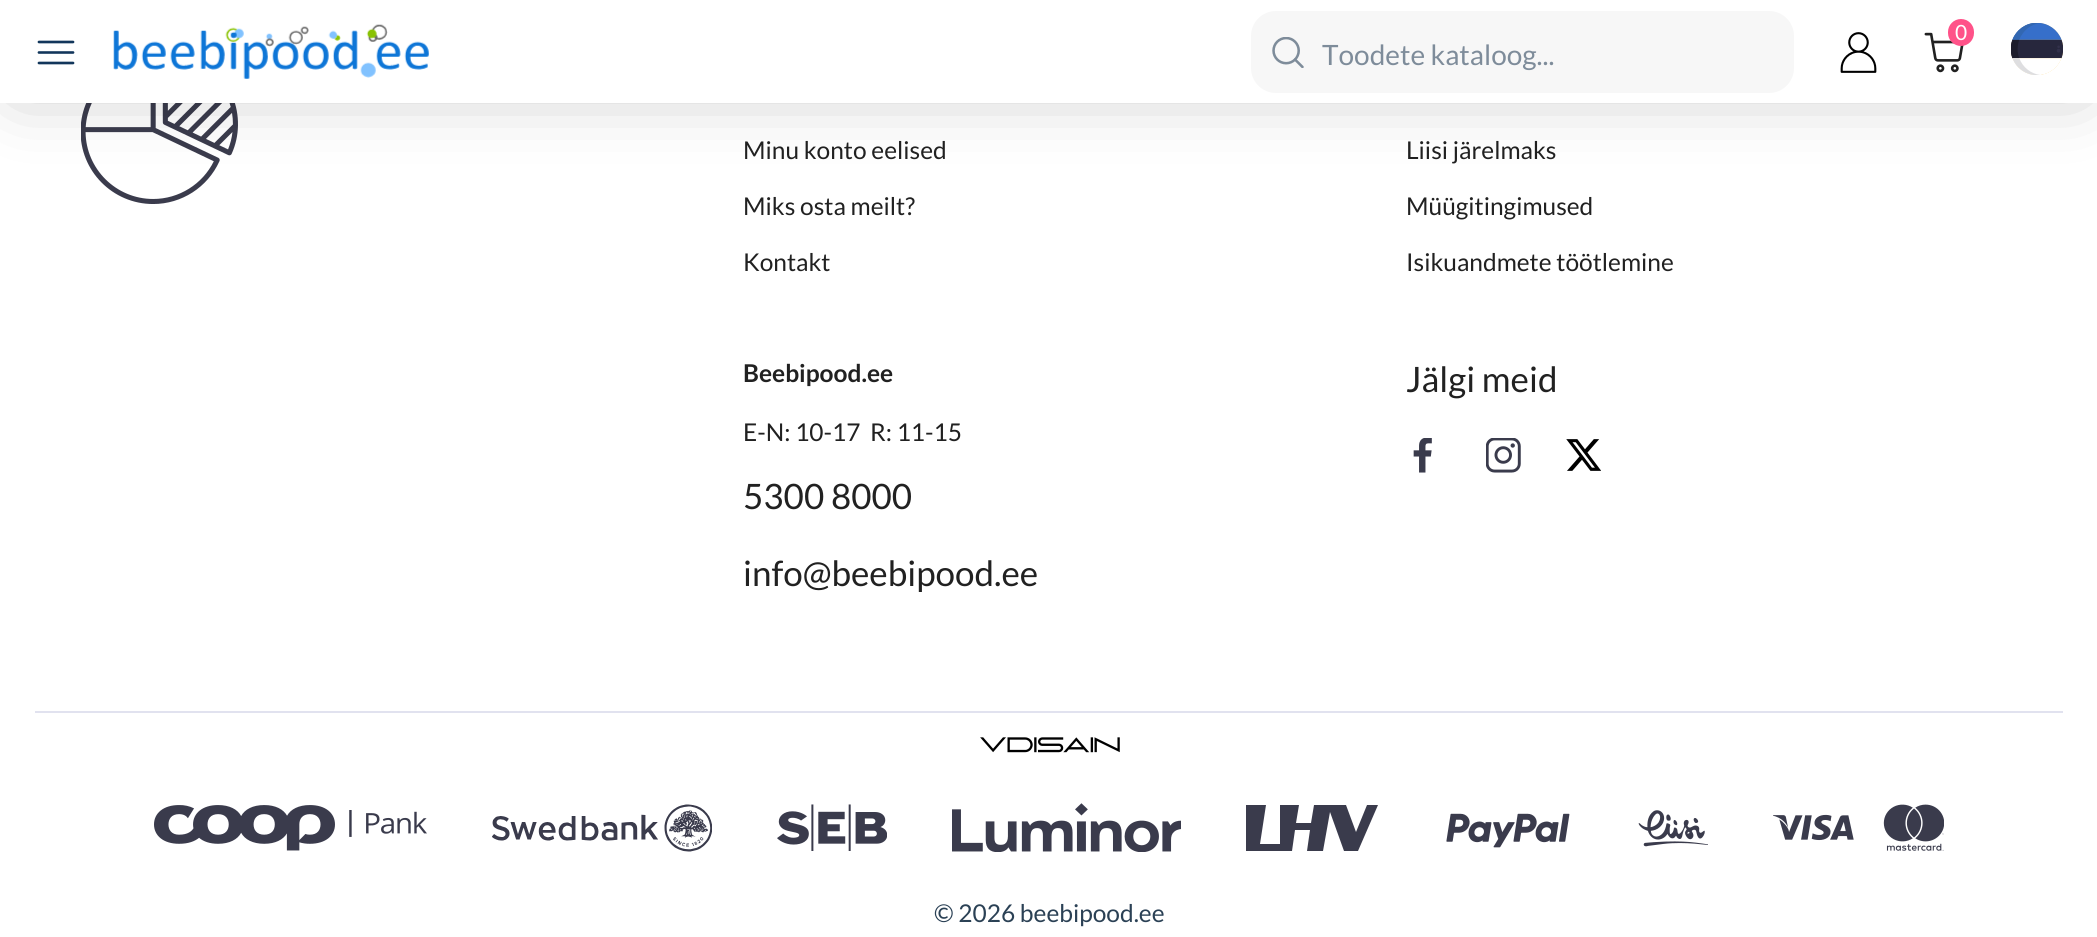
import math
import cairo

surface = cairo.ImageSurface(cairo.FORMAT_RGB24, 2097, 937)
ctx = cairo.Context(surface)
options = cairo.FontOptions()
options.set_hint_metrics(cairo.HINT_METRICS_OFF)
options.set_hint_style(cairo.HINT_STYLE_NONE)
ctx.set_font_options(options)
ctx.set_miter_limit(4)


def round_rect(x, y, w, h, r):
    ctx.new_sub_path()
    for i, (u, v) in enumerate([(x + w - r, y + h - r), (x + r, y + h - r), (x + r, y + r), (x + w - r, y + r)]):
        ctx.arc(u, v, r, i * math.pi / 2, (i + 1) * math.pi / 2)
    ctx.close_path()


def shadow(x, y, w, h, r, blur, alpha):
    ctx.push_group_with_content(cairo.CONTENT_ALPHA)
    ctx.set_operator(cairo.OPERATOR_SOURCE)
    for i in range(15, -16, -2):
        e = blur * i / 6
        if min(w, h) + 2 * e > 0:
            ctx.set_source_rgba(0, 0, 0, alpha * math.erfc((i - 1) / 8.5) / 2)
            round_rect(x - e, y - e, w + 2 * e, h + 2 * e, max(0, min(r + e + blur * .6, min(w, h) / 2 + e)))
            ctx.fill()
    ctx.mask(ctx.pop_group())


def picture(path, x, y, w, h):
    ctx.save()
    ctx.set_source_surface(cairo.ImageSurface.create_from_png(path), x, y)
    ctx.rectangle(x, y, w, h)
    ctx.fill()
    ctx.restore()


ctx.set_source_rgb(1, 1, 1)
ctx.paint()
picture("img7.png", 81, 103, 157, 101)
ctx.set_source_rgb(0, 0, 0)
shadow(18, 18, 2063, 68, 0, 36, 0.28)
ctx.set_source_rgb(1, 1, 1)
ctx.rectangle(0, 0, 2097, 103)
ctx.fill()
picture("img1.png", 37, 40, 38, 25)
picture("img2.png", 113, 24, 316, 55)
ctx.set_source_rgb(0.965, 0.965, 0.965)
round_rect(1251, 11, 543, 82, 25)
ctx.fill()
picture("img3.png", 1272, 37, 32, 31)
ctx.select_font_face("Lato")
ctx.set_font_size(28)
ctx.set_source_rgb(0.494, 0.549, 0.604)
ctx.move_to(1322, 65)
ctx.show_text("Toodete kataloog...")
picture("img4.png", 1840, 32, 37, 41)
picture("img5.png", 1924, 32, 40, 41)
ctx.set_source_rgb(1, 0.322, 0.537)
round_rect(1948, 19, 26, 27, 13)
ctx.fill()
ctx.set_font_size(21)
ctx.set_source_rgb(1, 1, 1)
ctx.move_to(1955, 40)
ctx.show_text("0")
picture("img6.png", 2011, 23, 52, 52)
ctx.set_font_size(24.5)
ctx.set_source_rgb(0.129, 0.129, 0.129)
ctx.move_to(743, 159)
ctx.show_text("Minu konto eelised")
ctx.move_to(743, 215)
ctx.show_text("Miks osta meilt?")
ctx.move_to(743, 271)
ctx.show_text("Kontakt")
ctx.move_to(1406, 159)
ctx.show_text("Liisi järelmaks")
ctx.move_to(1406, 215)
ctx.show_text("Müügitingimused")
ctx.move_to(1406, 271)
ctx.show_text("Isikuandmete töötlemine")
ctx.select_font_face("Lato", cairo.FONT_SLANT_NORMAL, cairo.FONT_WEIGHT_BOLD)
ctx.move_to(743, 382)
ctx.show_text("Beebipood.ee")
ctx.select_font_face("Lato")
ctx.move_to(743, 441)
ctx.show_text("E-N: 10-17  R: 11-15")
ctx.set_font_size(35)
ctx.move_to(743, 509)
ctx.show_text("5300 8000")
ctx.move_to(743, 586)
ctx.show_text("info@beebipood.ee")
ctx.move_to(1406, 392)
ctx.show_text("Jälgi meid")
picture("img8.png", 1413, 438, 19, 35)
picture("img9.png", 1486, 438, 35, 35)
picture("img10.png", 1566, 439, 35, 32)
ctx.set_source_rgb(0.882, 0.886, 0.937)
ctx.rectangle(35, 711, 2028, 2)
ctx.fill()
picture("img11.png", 980, 737, 140, 16)
picture("img12.png", 154, 805, 273, 46)
picture("img13.png", 492, 804, 220, 48)
picture("img14.png", 777, 804, 110, 47)
picture("img15.png", 952, 803, 229, 49)
ctx.set_source_rgb(0.227, 0.231, 0.298)
ctx.set_fill_rule(cairo.FILL_RULE_EVEN_ODD)
ctx.new_path()
ctx.move_to(1314, 805)
ctx.line_to(1311, 823)
ctx.line_to(1296, 823)
ctx.line_to(1299, 805)
ctx.line_to(1280, 805)
ctx.line_to(1280, 844)
ctx.line_to(1260, 844)
ctx.line_to(1266, 805)
ctx.line_to(1246, 805)
ctx.line_to(1246, 851)
ctx.line_to(1292, 851)
ctx.line_to(1295, 830)
ctx.line_to(1310, 830)
ctx.line_to(1307, 851)
ctx.line_to(1323, 851)
ctx.line_to(1330, 812)
ctx.line_to(1344, 851)
ctx.line_to(1358, 851)
ctx.line_to(1378, 805)
ctx.line_to(1367, 805)
ctx.line_to(1356, 832)
ctx.line_to(1346, 805)
ctx.close_path()
ctx.fill()
picture("img16.png", 1446, 813, 124, 35)
picture("img17.png", 1638, 810, 70, 37)
picture("img18.png", 1773, 804, 171, 47)
ctx.set_font_size(24.5)
ctx.set_source_rgb(0.169, 0.255, 0.333)
ctx.move_to(934, 922)
ctx.show_text("© 2026 beebipood.ee")
surface.write_to_png("page.png")
